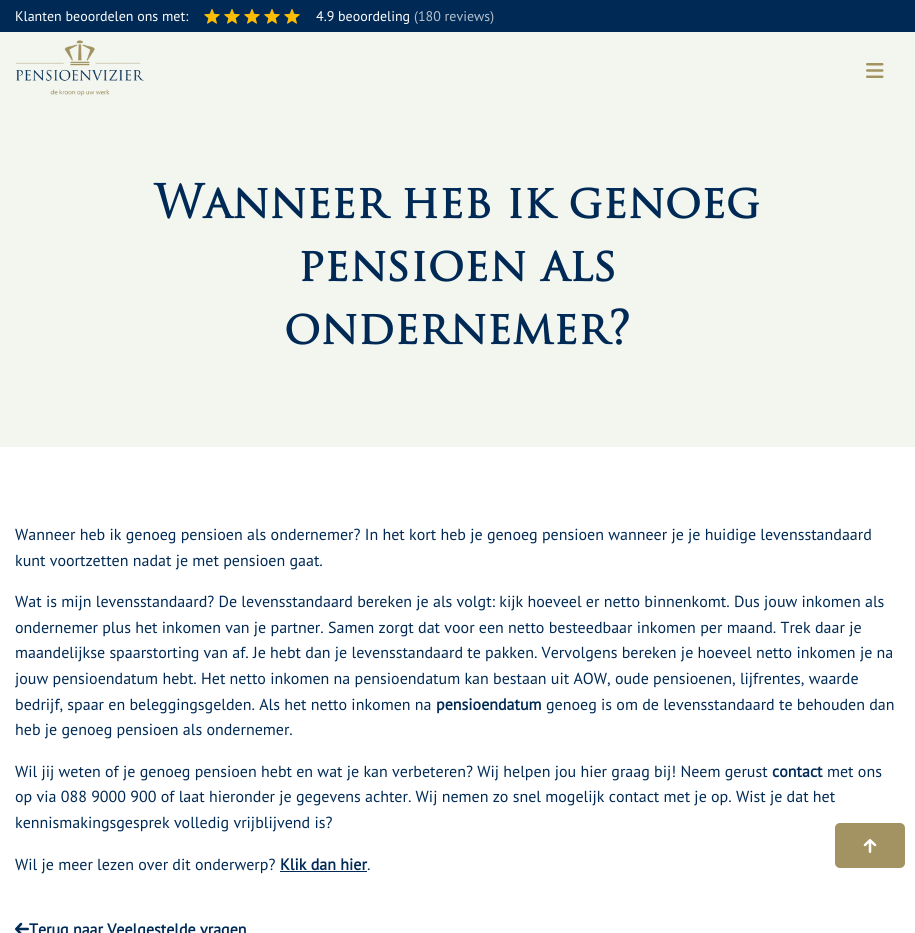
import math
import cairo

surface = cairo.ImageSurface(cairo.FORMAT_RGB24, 915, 933)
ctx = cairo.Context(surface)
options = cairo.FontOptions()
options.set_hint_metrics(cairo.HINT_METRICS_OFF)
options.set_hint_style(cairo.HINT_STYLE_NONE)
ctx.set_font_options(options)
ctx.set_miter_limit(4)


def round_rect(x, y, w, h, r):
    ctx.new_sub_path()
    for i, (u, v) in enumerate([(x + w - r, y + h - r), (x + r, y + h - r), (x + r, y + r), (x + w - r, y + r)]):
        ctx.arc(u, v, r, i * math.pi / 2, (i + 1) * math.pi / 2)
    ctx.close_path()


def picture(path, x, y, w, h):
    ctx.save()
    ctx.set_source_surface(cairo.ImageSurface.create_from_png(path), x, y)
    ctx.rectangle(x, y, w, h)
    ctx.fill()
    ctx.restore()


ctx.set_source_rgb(1, 1, 1)
ctx.paint()
ctx.set_source_rgb(0, 0.165, 0.333)
ctx.rectangle(0, 0, 915, 32)
ctx.fill()
ctx.select_font_face("PT Sans")
ctx.set_font_size(14)
ctx.set_source_rgb(1, 1, 1)
ctx.move_to(15, 21)
ctx.show_text("Klanten beoordelen ons met:")
picture("img1.png", 204, 8, 16, 16)
picture("img1.png", 224, 8, 16, 16)
picture("img1.png", 244, 8, 16, 16)
picture("img1.png", 264, 8, 16, 16)
picture("img1.png", 284, 8, 16, 16)
ctx.move_to(316, 21)
ctx.show_text("4.9 beoordeling")
ctx.set_source_rgb(0.702, 0.749, 0.8)
ctx.move_to(414, 21)
ctx.show_text("(180 reviews)")
ctx.set_source_rgb(0.949, 0.961, 0.937)
ctx.rectangle(0, 32, 915, 415)
ctx.fill()
picture("img2.png", 16, 40, 128, 56)
picture("img3.png", 866, 63, 18, 15)
ctx.select_font_face("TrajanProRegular", cairo.FONT_SLANT_NORMAL, cairo.FONT_WEIGHT_BOLD)
ctx.set_font_size(45)
ctx.set_source_rgb(0, 0.165, 0.333)
ctx.move_to(154, 218)
ctx.show_text("Wanneer heb ik genoeg")
ctx.move_to(298, 281)
ctx.show_text("pensioen als")
ctx.move_to(284, 344)
ctx.show_text("ondernemer?")
ctx.select_font_face("PT Sans")
ctx.set_font_size(16)
ctx.move_to(15, 540)
ctx.show_text("Wanneer heb ik genoeg pensioen als ondernemer? In het kort heb je genoeg pensioen wanneer je je huidige levensstandaard")
ctx.move_to(15, 566)
ctx.show_text("kunt voortzetten nadat je met pensioen gaat.")
ctx.move_to(15, 607)
ctx.show_text("Wat is mijn levensstandaard? De levensstandaard bereken je als volgt: kijk hoeveel er netto binnenkomt. Dus jouw inkomen als")
ctx.move_to(15, 633)
ctx.show_text("ondernemer plus het inkomen van je partner. Samen zorgt dat voor een netto besteedbaar inkomen per maand. Trek daar je")
ctx.move_to(15, 658)
ctx.show_text("maandelijkse spaarstorting van af. Je hebt dan je levensstandaard te pakken. Vervolgens bereken je hoeveel netto inkomen je na")
ctx.move_to(15, 684)
ctx.show_text("jouw pensioendatum hebt. Het netto inkomen na pensioendatum kan bestaan uit AOW, oude pensioenen, lijfrentes, waarde")
ctx.move_to(15, 710)
ctx.show_text("bedrijf, spaar en beleggingsgelden. Als het netto inkomen na")
ctx.select_font_face("PT Sans", cairo.FONT_SLANT_NORMAL, cairo.FONT_WEIGHT_BOLD)
ctx.move_to(436, 710)
ctx.show_text("pensioendatum")
ctx.select_font_face("PT Sans")
ctx.move_to(546, 710)
ctx.show_text("genoeg is om de levensstandaard te behouden dan")
ctx.move_to(15, 735)
ctx.show_text("heb je genoeg pensioen als ondernemer.")
ctx.move_to(15, 777)
ctx.show_text("Wil jij weten of je genoeg pensioen hebt en wat je kan verbeteren? Wij helpen jou hier graag bij! Neem gerust")
ctx.select_font_face("PT Sans", cairo.FONT_SLANT_NORMAL, cairo.FONT_WEIGHT_BOLD)
ctx.move_to(772, 777)
ctx.show_text("contact")
ctx.select_font_face("PT Sans")
ctx.move_to(827, 777)
ctx.show_text("met ons")
ctx.move_to(15, 802)
ctx.show_text("op via 088 9000 900 of laat hieronder je gegevens achter. Wij nemen zo snel mogelijk contact met je op. Wist je dat het")
ctx.move_to(15, 828)
ctx.show_text("kennismakingsgesprek volledig vrijblijvend is?")
ctx.move_to(15, 870)
ctx.show_text("Wil je meer lezen over dit onderwerp?")
ctx.select_font_face("PT Sans", cairo.FONT_SLANT_NORMAL, cairo.FONT_WEIGHT_BOLD)
ctx.move_to(280, 870)
ctx.show_text("Klik dan hier")
ctx.rectangle(280, 871, 87, 1)
ctx.fill()
ctx.select_font_face("PT Sans")
ctx.move_to(367, 870)
ctx.show_text(".")
picture("img4.png", 15, 922, 14, 11)
ctx.select_font_face("PT Sans", cairo.FONT_SLANT_NORMAL, cairo.FONT_WEIGHT_BOLD)
ctx.move_to(29, 935)
ctx.show_text("Terug naar Veelgestelde vragen")
ctx.set_source_rgb(0.639, 0.573, 0.384)
round_rect(835, 823, 70, 45, 5)
ctx.fill()
picture("img5.png", 863, 839, 14, 14)
surface.write_to_png("page.png")
